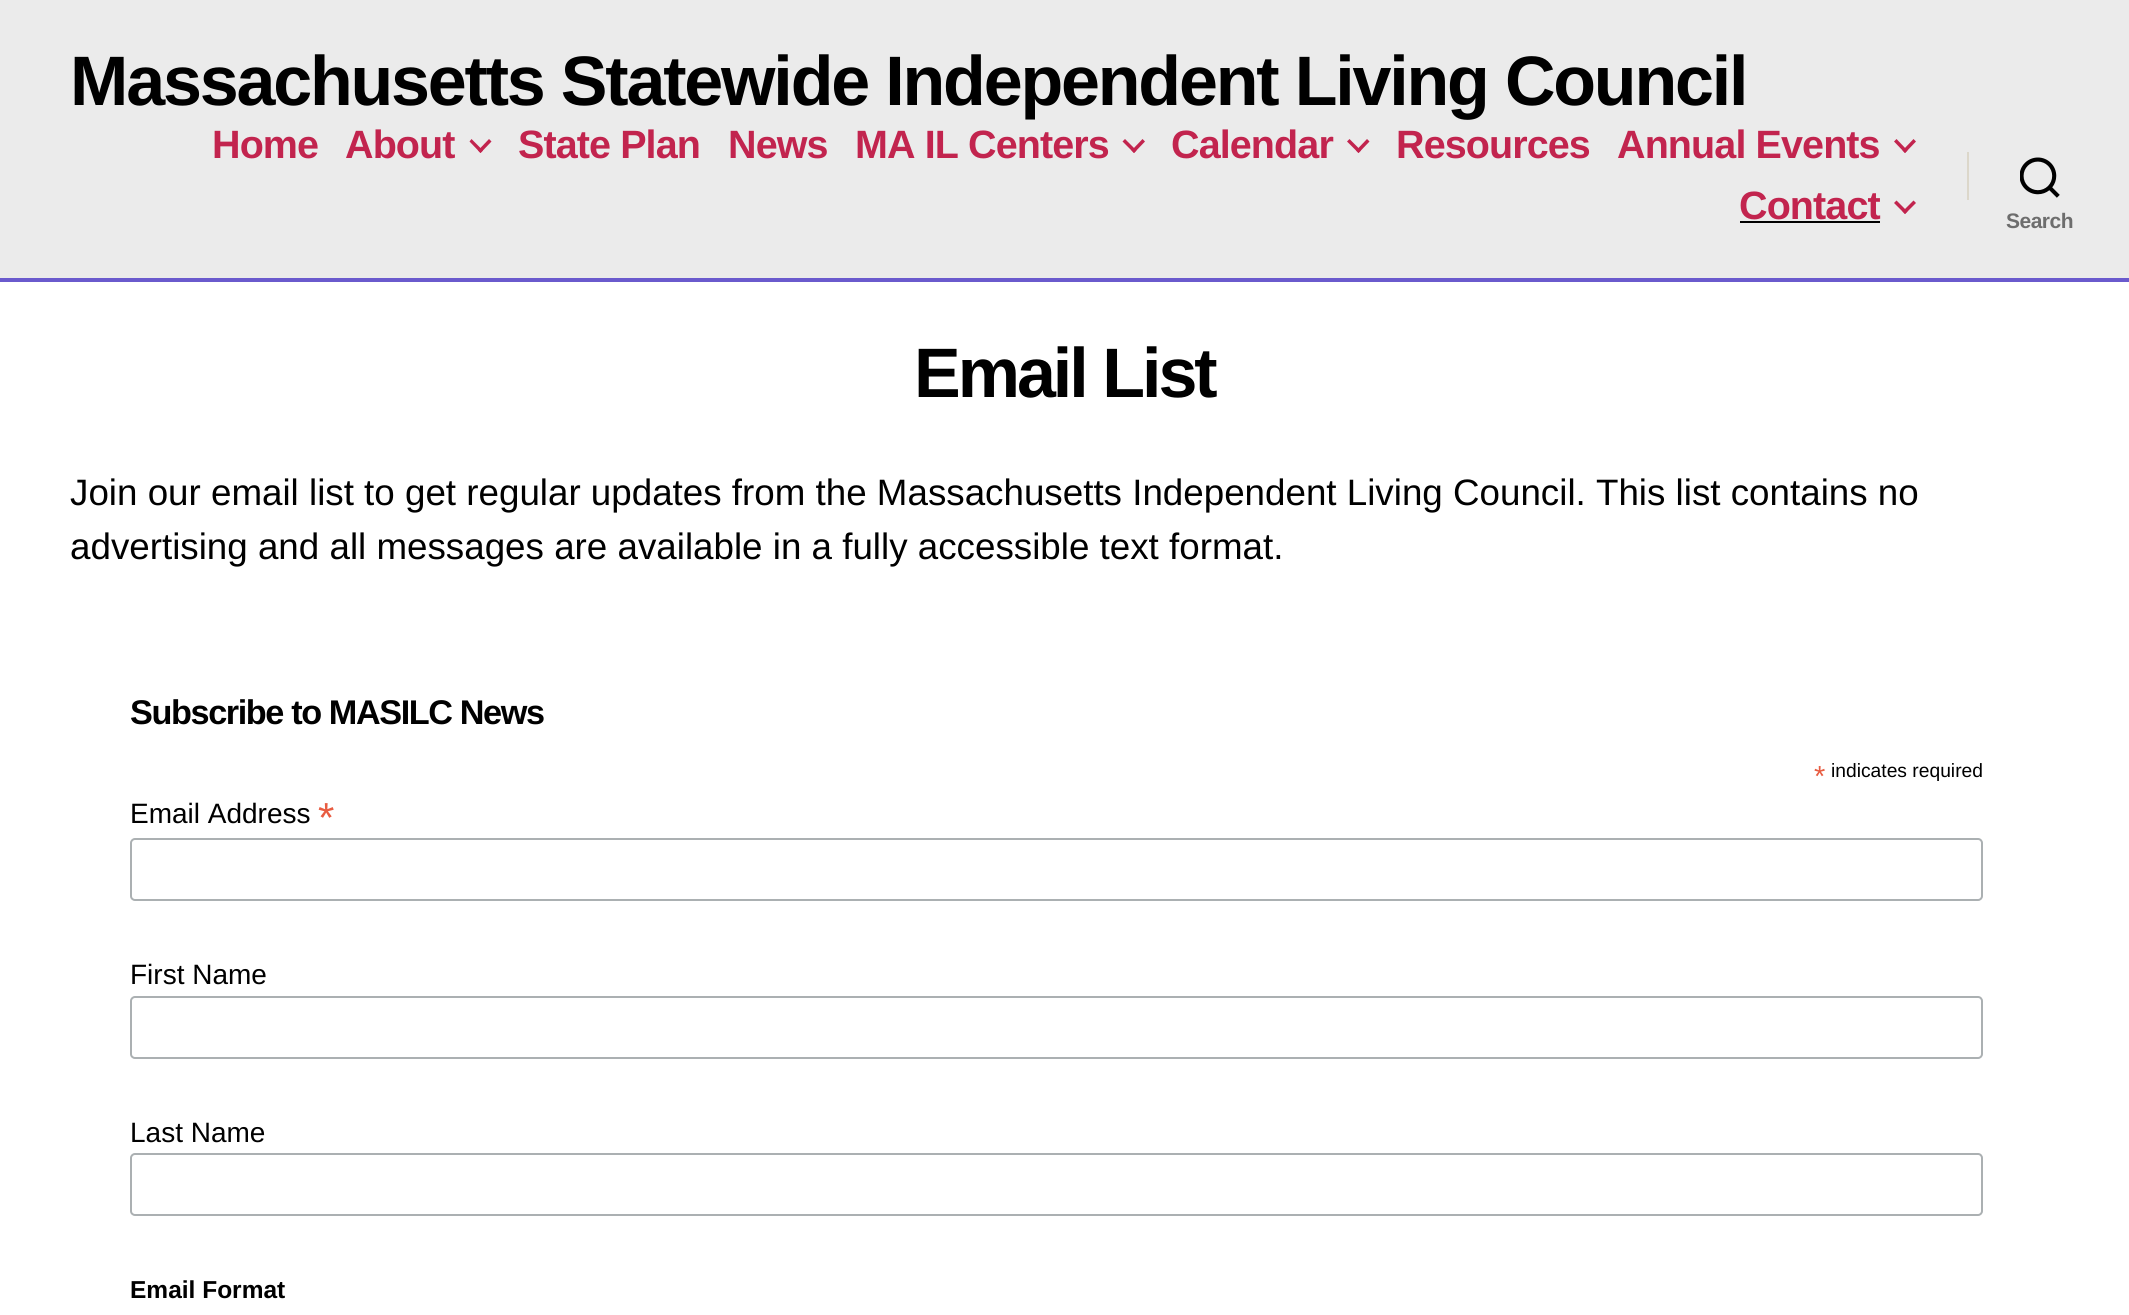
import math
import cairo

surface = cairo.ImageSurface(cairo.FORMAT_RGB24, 2129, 1315)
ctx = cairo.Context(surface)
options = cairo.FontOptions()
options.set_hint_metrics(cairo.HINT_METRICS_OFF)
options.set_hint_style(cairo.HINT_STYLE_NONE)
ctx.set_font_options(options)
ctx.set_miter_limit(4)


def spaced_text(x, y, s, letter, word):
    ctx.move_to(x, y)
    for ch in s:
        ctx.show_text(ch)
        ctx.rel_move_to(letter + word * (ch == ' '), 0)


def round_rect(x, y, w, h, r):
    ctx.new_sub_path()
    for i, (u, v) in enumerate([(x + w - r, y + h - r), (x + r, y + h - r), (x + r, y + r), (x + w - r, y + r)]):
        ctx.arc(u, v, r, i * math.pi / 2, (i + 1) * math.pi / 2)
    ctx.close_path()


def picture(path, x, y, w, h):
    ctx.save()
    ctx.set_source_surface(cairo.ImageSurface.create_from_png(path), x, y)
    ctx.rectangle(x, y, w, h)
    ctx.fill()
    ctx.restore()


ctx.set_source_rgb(1, 1, 1)
ctx.paint()
ctx.set_source_rgb(0.918, 0.918, 0.918)
ctx.rectangle(0, 0, 2129, 278)
ctx.fill()
ctx.set_source_rgb(0.416, 0.353, 0.804)
ctx.rectangle(0, 278, 2129, 4)
ctx.fill()
ctx.select_font_face("Liberation Sans", cairo.FONT_SLANT_NORMAL, cairo.FONT_WEIGHT_BOLD)
ctx.set_font_size(70)
ctx.set_source_rgb(0, 0, 0)
spaced_text(70, 105, "Massachusetts Statewide Independent Living Council", -2.18, 0)
ctx.set_font_size(39.5)
ctx.set_source_rgb(0.761, 0.141, 0.306)
spaced_text(212, 158, "Home", -0.9, 0)
spaced_text(345, 158, "About", -0.9, 0)
ctx.new_path()
ctx.move_to(469.5, 141.5)
ctx.line_to(471.5, 139)
ctx.line_to(483, 150.5)
ctx.line_to(480.5, 153)
ctx.close_path()
ctx.fill()
ctx.new_path()
ctx.move_to(478, 150.5)
ctx.line_to(489, 139)
ctx.line_to(491.5, 141.5)
ctx.line_to(480.5, 153)
ctx.close_path()
ctx.fill()
spaced_text(518, 158, "State Plan", -0.9, 0)
spaced_text(728, 158, "News", -0.9, 0)
spaced_text(855, 158, "MA IL Centers", -0.9, 0)
ctx.new_path()
ctx.move_to(1122.5, 141.5)
ctx.line_to(1125, 139)
ctx.line_to(1136.5, 150.5)
ctx.line_to(1134, 153)
ctx.close_path()
ctx.fill()
ctx.new_path()
ctx.move_to(1131.5, 150.5)
ctx.line_to(1142.5, 139)
ctx.line_to(1145, 141.5)
ctx.line_to(1134, 153)
ctx.close_path()
ctx.fill()
spaced_text(1171, 158, "Calendar", -0.9, 0)
ctx.new_path()
ctx.move_to(1347, 141.5)
ctx.line_to(1349.5, 139)
ctx.line_to(1361, 150.5)
ctx.line_to(1358.5, 153)
ctx.close_path()
ctx.fill()
ctx.new_path()
ctx.move_to(1356, 150.5)
ctx.line_to(1367, 139)
ctx.line_to(1369.5, 141.5)
ctx.line_to(1358.5, 153)
ctx.close_path()
ctx.fill()
spaced_text(1396, 158, "Resources", -0.9, 0)
spaced_text(1617, 158, "Annual Events", -0.9, 0)
ctx.new_path()
ctx.move_to(1894, 141.5)
ctx.line_to(1896.5, 139)
ctx.line_to(1907.5, 150.5)
ctx.line_to(1905, 153)
ctx.close_path()
ctx.fill()
ctx.new_path()
ctx.move_to(1902.5, 150.5)
ctx.line_to(1913.5, 139)
ctx.line_to(1916, 141.5)
ctx.line_to(1905, 153)
ctx.close_path()
ctx.fill()
spaced_text(1739, 219, "Contact", -0.9, 0)
ctx.set_source_rgb(0, 0, 0)
ctx.rectangle(1740, 221, 140, 2)
ctx.fill()
ctx.set_source_rgb(0.761, 0.141, 0.306)
ctx.new_path()
ctx.move_to(1894, 203)
ctx.line_to(1896.5, 200.5)
ctx.line_to(1907.5, 211.5)
ctx.line_to(1905, 214)
ctx.close_path()
ctx.fill()
ctx.new_path()
ctx.move_to(1902.5, 211.5)
ctx.line_to(1913.5, 200.5)
ctx.line_to(1916, 203)
ctx.line_to(1905, 214)
ctx.close_path()
ctx.fill()
ctx.set_source_rgb(0.863, 0.843, 0.792)
ctx.rectangle(1967, 152, 2, 48)
ctx.fill()
picture("img1.png", 2020, 157, 40, 41)
ctx.set_font_size(21)
ctx.set_source_rgb(0.427, 0.427, 0.427)
spaced_text(2006, 228, "Search", -0.5, 0)
ctx.set_font_size(70)
ctx.set_source_rgb(0, 0, 0)
spaced_text(914, 397, "Email List", -3, 0)
ctx.select_font_face("Liberation Sans")
ctx.set_font_size(36.75)
ctx.move_to(70, 505)
ctx.show_text("Join our email list to get regular updates from the Massachusetts Independent Living Council. This list contains no")
ctx.move_to(70, 559)
ctx.show_text("advertising and all messages are available in a fully accessible text format.")
ctx.select_font_face("Liberation Sans", cairo.FONT_SLANT_NORMAL, cairo.FONT_WEIGHT_BOLD)
ctx.set_font_size(34.25)
spaced_text(130, 724, "Subscribe to MASILC News", -1.4, 0)
ctx.select_font_face("Liberation Sans")
ctx.set_font_size(29)
ctx.set_source_rgb(0.91, 0.361, 0.255)
ctx.move_to(1814, 786)
ctx.show_text("*")
ctx.set_font_size(19.25)
ctx.set_source_rgb(0, 0, 0)
ctx.move_to(1831, 777)
ctx.show_text("indicates required")
ctx.set_font_size(28)
ctx.move_to(130, 823)
ctx.show_text("Email Address")
ctx.set_font_size(42)
ctx.set_source_rgb(0.91, 0.361, 0.255)
ctx.move_to(318, 832)
ctx.show_text("*")
round_rect(131, 839, 1851, 61, 4)
ctx.set_source_rgb(0.671, 0.69, 0.698)
ctx.stroke()
ctx.set_font_size(28)
ctx.set_source_rgb(0, 0, 0)
ctx.move_to(130, 984)
ctx.show_text("First Name")
round_rect(131, 997, 1851, 61, 4)
ctx.set_source_rgb(0.671, 0.69, 0.698)
ctx.stroke()
ctx.set_source_rgb(0, 0, 0)
ctx.move_to(130, 1142)
ctx.show_text("Last Name")
round_rect(131, 1154, 1851, 61, 4)
ctx.set_source_rgb(0.671, 0.69, 0.698)
ctx.stroke()
ctx.select_font_face("Liberation Sans", cairo.FONT_SLANT_NORMAL, cairo.FONT_WEIGHT_BOLD)
ctx.set_font_size(24.5)
ctx.set_source_rgb(0, 0, 0)
ctx.move_to(130, 1298)
ctx.show_text("Email Format")
surface.write_to_png("page.png")
